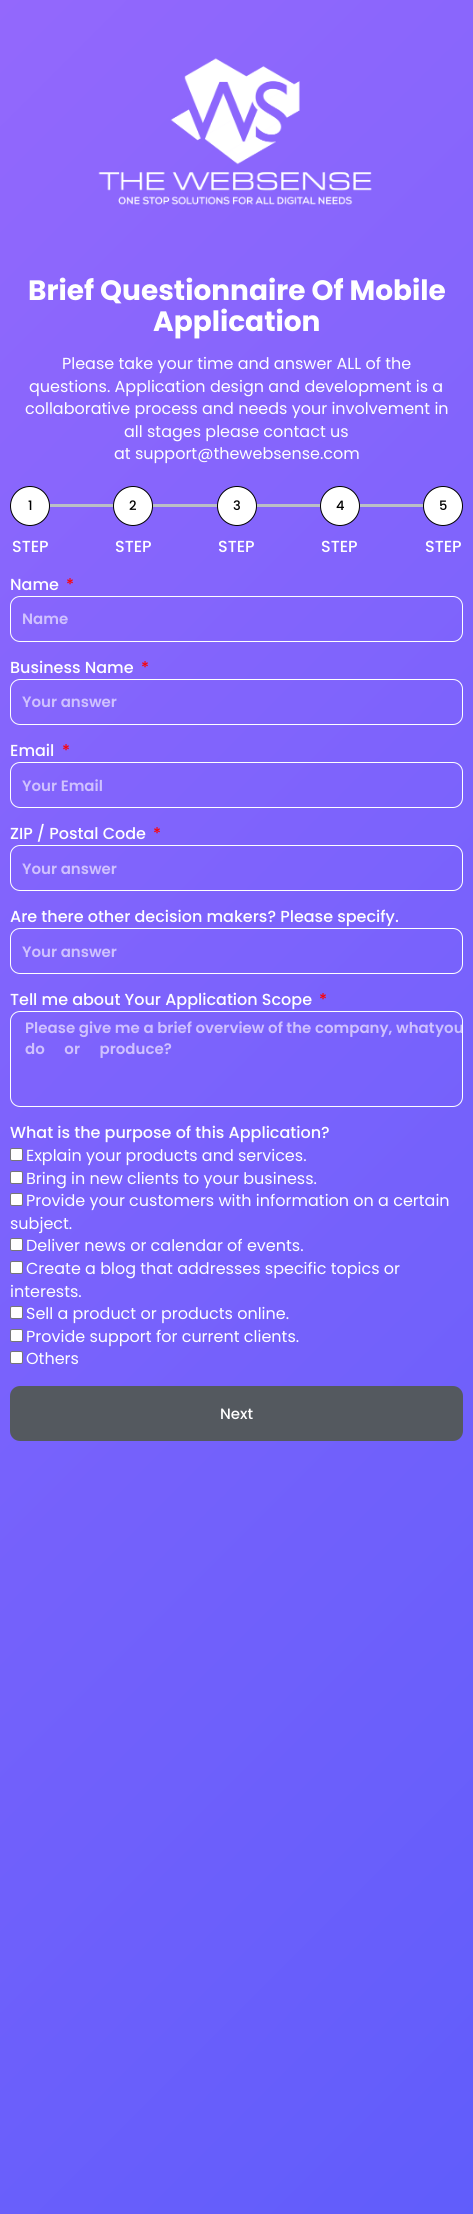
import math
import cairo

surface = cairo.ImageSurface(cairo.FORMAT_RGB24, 473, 2214)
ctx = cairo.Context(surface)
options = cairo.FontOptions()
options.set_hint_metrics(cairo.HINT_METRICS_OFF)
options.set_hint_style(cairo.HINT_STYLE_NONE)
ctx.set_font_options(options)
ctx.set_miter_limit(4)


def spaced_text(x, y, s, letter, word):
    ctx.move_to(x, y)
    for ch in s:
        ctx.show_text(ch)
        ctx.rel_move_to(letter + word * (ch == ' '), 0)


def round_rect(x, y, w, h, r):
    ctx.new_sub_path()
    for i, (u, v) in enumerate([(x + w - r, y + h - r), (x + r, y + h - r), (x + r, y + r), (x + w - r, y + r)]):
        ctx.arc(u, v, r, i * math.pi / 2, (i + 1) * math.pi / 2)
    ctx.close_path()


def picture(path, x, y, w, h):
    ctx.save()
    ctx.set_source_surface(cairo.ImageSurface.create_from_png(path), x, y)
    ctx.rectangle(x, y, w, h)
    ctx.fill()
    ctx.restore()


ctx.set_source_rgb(1, 1, 1)
ctx.paint()
gradient = cairo.LinearGradient(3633, 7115, -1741, 1741)
gradient.add_color_stop_rgba(0, 0.314, 0.349, 0.984, 1)
gradient.add_color_stop_rgba(0.33, 0.576, 0.408, 0.988, 1)
gradient.add_color_stop_rgba(0.67, 0.314, 0.349, 0.984, 1)
gradient.add_color_stop_rgba(1, 0.576, 0.408, 0.988, 1)
ctx.set_source(gradient)
ctx.rectangle(0, 0, 473, 2214)
ctx.fill()
picture("img1.png", 98, 58, 274, 147)
ctx.select_font_face("Poppins", cairo.FONT_SLANT_NORMAL, cairo.FONT_WEIGHT_BOLD)
ctx.set_font_size(28)
ctx.set_source_rgb(1, 1, 1)
ctx.move_to(28, 300)
ctx.show_text("Brief Questionnaire Of Mobile")
ctx.move_to(153, 331)
ctx.show_text("Application")
ctx.select_font_face("Poppins")
ctx.set_font_size(16)
ctx.move_to(62, 369)
ctx.show_text("Please take your time and answer ALL of the")
ctx.move_to(29, 392)
ctx.show_text("questions. Application design and development is a")
ctx.move_to(25, 414)
ctx.show_text("collaborative process and needs your involvement in")
ctx.move_to(124, 437)
ctx.show_text("all stages please contact us")
ctx.move_to(114, 459)
ctx.show_text("at support@thewebsense.com")
ctx.new_path()
ctx.arc(30, 506, 19.5, 0, 2 * math.pi)
ctx.fill_preserve()
ctx.set_source_rgb(0, 0, 0)
ctx.set_line_width(1)
ctx.stroke()
ctx.select_font_face("Poppins Medium")
ctx.set_font_size(13)
ctx.move_to(28, 510)
ctx.show_text("1")
ctx.set_font_size(16)
ctx.set_source_rgb(1, 1, 1)
ctx.move_to(12, 552)
ctx.show_text("STEP")
ctx.set_source_rgb(0.729, 0.749, 0.773)
ctx.rectangle(50, 504, 63, 3)
ctx.fill()
ctx.set_source_rgb(1, 1, 1)
ctx.arc(133, 506, 19.5, 0, 2 * math.pi)
ctx.fill_preserve()
ctx.set_source_rgb(0, 0, 0)
ctx.stroke()
ctx.set_font_size(13)
ctx.move_to(129, 510)
ctx.show_text("2")
ctx.set_font_size(16)
ctx.set_source_rgb(1, 1, 1)
ctx.move_to(115, 552)
ctx.show_text("STEP")
ctx.set_source_rgb(0.729, 0.749, 0.773)
ctx.rectangle(153, 504, 64, 3)
ctx.fill()
ctx.set_source_rgb(1, 1, 1)
ctx.arc(237, 506, 19.5, 0, 2 * math.pi)
ctx.fill_preserve()
ctx.set_source_rgb(0, 0, 0)
ctx.stroke()
ctx.set_font_size(13)
ctx.move_to(233, 510)
ctx.show_text("3")
ctx.set_font_size(16)
ctx.set_source_rgb(1, 1, 1)
ctx.move_to(218, 552)
ctx.show_text("STEP")
ctx.set_source_rgb(0.729, 0.749, 0.773)
ctx.rectangle(257, 504, 63, 3)
ctx.fill()
ctx.set_source_rgb(1, 1, 1)
ctx.arc(340, 506, 19.5, 0, 2 * math.pi)
ctx.fill_preserve()
ctx.set_source_rgb(0, 0, 0)
ctx.stroke()
ctx.set_font_size(13)
ctx.move_to(336, 510)
ctx.show_text("4")
ctx.set_font_size(16)
ctx.set_source_rgb(1, 1, 1)
ctx.move_to(321, 552)
ctx.show_text("STEP")
ctx.set_source_rgb(0.729, 0.749, 0.773)
ctx.rectangle(360, 504, 63, 3)
ctx.fill()
ctx.set_source_rgb(1, 1, 1)
ctx.arc(443, 506, 19.5, 0, 2 * math.pi)
ctx.fill_preserve()
ctx.set_source_rgb(0, 0, 0)
ctx.stroke()
ctx.set_font_size(13)
ctx.move_to(439, 510)
ctx.show_text("5")
ctx.set_font_size(16)
ctx.set_source_rgb(1, 1, 1)
ctx.move_to(425, 552)
ctx.show_text("STEP")
ctx.move_to(10, 590)
ctx.show_text("Name")
ctx.set_source_rgb(1, 0, 0)
ctx.move_to(66, 590)
ctx.show_text("*")
round_rect(10.5, 596.5, 452, 45, 9.5)
ctx.set_source_rgb(1, 1, 1)
ctx.stroke()
ctx.select_font_face("Poppins SemiBold")
ctx.set_font_size(15)
ctx.set_source_rgb(0.812, 0.757, 0.996)
ctx.move_to(22, 624)
ctx.show_text("Name")
ctx.select_font_face("Poppins Medium")
ctx.set_font_size(16)
ctx.set_source_rgb(1, 1, 1)
ctx.move_to(10, 673)
ctx.show_text("Business Name")
ctx.set_source_rgb(1, 0, 0)
ctx.move_to(141, 673)
ctx.show_text("*")
round_rect(10.5, 679.5, 452, 45, 9.5)
ctx.set_source_rgb(1, 1, 1)
ctx.stroke()
ctx.select_font_face("Poppins SemiBold")
ctx.set_font_size(15)
ctx.set_source_rgb(0.812, 0.757, 0.996)
ctx.move_to(22, 707)
ctx.show_text("Your answer")
ctx.select_font_face("Poppins Medium")
ctx.set_font_size(16)
ctx.set_source_rgb(1, 1, 1)
ctx.move_to(10, 756)
ctx.show_text("Email")
ctx.set_source_rgb(1, 0, 0)
ctx.move_to(62, 756)
ctx.show_text("*")
round_rect(10.5, 762.5, 452, 45, 9.5)
ctx.set_source_rgb(1, 1, 1)
ctx.stroke()
ctx.select_font_face("Poppins SemiBold")
ctx.set_font_size(15)
ctx.set_source_rgb(0.812, 0.757, 0.996)
ctx.move_to(22, 791)
ctx.show_text("Your Email")
ctx.select_font_face("Poppins Medium")
ctx.set_font_size(16)
ctx.set_source_rgb(1, 1, 1)
ctx.move_to(10, 839)
ctx.show_text("ZIP / Postal Code")
ctx.set_source_rgb(1, 0, 0)
ctx.move_to(153, 839)
ctx.show_text("*")
round_rect(10.5, 845.5, 452, 45, 9.5)
ctx.set_source_rgb(1, 1, 1)
ctx.stroke()
ctx.select_font_face("Poppins SemiBold")
ctx.set_font_size(15)
ctx.set_source_rgb(0.812, 0.757, 0.996)
ctx.move_to(22, 874)
ctx.show_text("Your answer")
ctx.select_font_face("Poppins Medium")
ctx.set_font_size(16)
ctx.set_source_rgb(1, 1, 1)
ctx.move_to(10, 922)
ctx.show_text("Are there other decision makers? Please specify.")
round_rect(10.5, 928.5, 452, 45, 9.5)
ctx.stroke()
ctx.select_font_face("Poppins SemiBold")
ctx.set_font_size(15)
ctx.set_source_rgb(0.812, 0.757, 0.996)
ctx.move_to(22, 957)
ctx.show_text("Your answer")
ctx.select_font_face("Poppins Medium")
ctx.set_font_size(16)
ctx.set_source_rgb(1, 1, 1)
ctx.move_to(10, 1005)
ctx.show_text("Tell me about Your Application Scope")
ctx.set_source_rgb(1, 0, 0)
ctx.move_to(319, 1005)
ctx.show_text("*")
round_rect(10.5, 1011.5, 452, 95, 9.5)
ctx.set_source_rgb(1, 1, 1)
ctx.stroke()
ctx.select_font_face("Poppins SemiBold")
ctx.set_font_size(15)
ctx.set_source_rgb(0.812, 0.757, 0.996)
ctx.move_to(25, 1033)
ctx.show_text("Please give me a brief overview of the company, what")
ctx.save()
round_rect(11, 1012, 451, 94, 9)
ctx.clip()
ctx.set_source_rgb(0.788, 0.753, 0.996)
ctx.move_to(435, 1033)
ctx.show_text("you")
ctx.restore()
spaced_text(25, 1054, "do or produce?", 0, 16)
ctx.select_font_face("Poppins Medium")
ctx.set_font_size(16)
ctx.set_source_rgb(1, 1, 1)
ctx.move_to(10, 1138)
ctx.show_text("What is the purpose of this Application?")
round_rect(10.5, 1148.5, 12, 12, 1.5)
ctx.fill_preserve()
ctx.set_source_rgb(0.463, 0.463, 0.463)
ctx.stroke()
ctx.select_font_face("Poppins")
ctx.set_source_rgb(1, 1, 1)
ctx.move_to(26, 1161)
ctx.show_text("Explain your products and services.")
round_rect(10.5, 1171.5, 12, 12, 1.5)
ctx.fill_preserve()
ctx.set_source_rgb(0.463, 0.463, 0.463)
ctx.stroke()
ctx.set_source_rgb(1, 1, 1)
ctx.move_to(26, 1184)
ctx.show_text("Bring in new clients to your business.")
round_rect(10.5, 1193.5, 12, 12, 1.5)
ctx.fill_preserve()
ctx.set_source_rgb(0.463, 0.463, 0.463)
ctx.stroke()
ctx.set_source_rgb(1, 1, 1)
ctx.move_to(26, 1206)
ctx.show_text("Provide your customers with information on a certain")
ctx.move_to(10, 1229)
ctx.show_text("subject.")
round_rect(10.5, 1238.5, 12, 12, 1.5)
ctx.fill_preserve()
ctx.set_source_rgb(0.463, 0.463, 0.463)
ctx.stroke()
ctx.set_source_rgb(1, 1, 1)
ctx.move_to(26, 1251)
ctx.show_text("Deliver news or calendar of events.")
round_rect(10.5, 1261.5, 12, 12, 1.5)
ctx.fill_preserve()
ctx.set_source_rgb(0.463, 0.463, 0.463)
ctx.stroke()
ctx.set_source_rgb(1, 1, 1)
ctx.move_to(26, 1274)
ctx.show_text("Create a blog that addresses specific topics or")
ctx.move_to(10, 1297)
ctx.show_text("interests.")
round_rect(10.5, 1306.5, 12, 12, 1.5)
ctx.fill_preserve()
ctx.set_source_rgb(0.463, 0.463, 0.463)
ctx.stroke()
ctx.set_source_rgb(1, 1, 1)
ctx.move_to(26, 1319)
ctx.show_text("Sell a product or products online.")
round_rect(10.5, 1329.5, 12, 12, 1.5)
ctx.fill_preserve()
ctx.set_source_rgb(0.463, 0.463, 0.463)
ctx.stroke()
ctx.set_source_rgb(1, 1, 1)
ctx.move_to(26, 1342)
ctx.show_text("Provide support for current clients.")
round_rect(10.5, 1351.5, 12, 12, 1.5)
ctx.fill_preserve()
ctx.set_source_rgb(0.463, 0.463, 0.463)
ctx.stroke()
ctx.set_source_rgb(1, 1, 1)
ctx.move_to(26, 1364)
ctx.show_text("Others")
ctx.set_source_rgb(0.329, 0.349, 0.373)
round_rect(10, 1386, 453, 55, 10)
ctx.fill()
ctx.select_font_face("Poppins Medium")
ctx.set_font_size(15)
ctx.set_source_rgb(1, 1, 1)
ctx.move_to(220, 1419)
ctx.show_text("Next")
surface.write_to_png("page.png")
